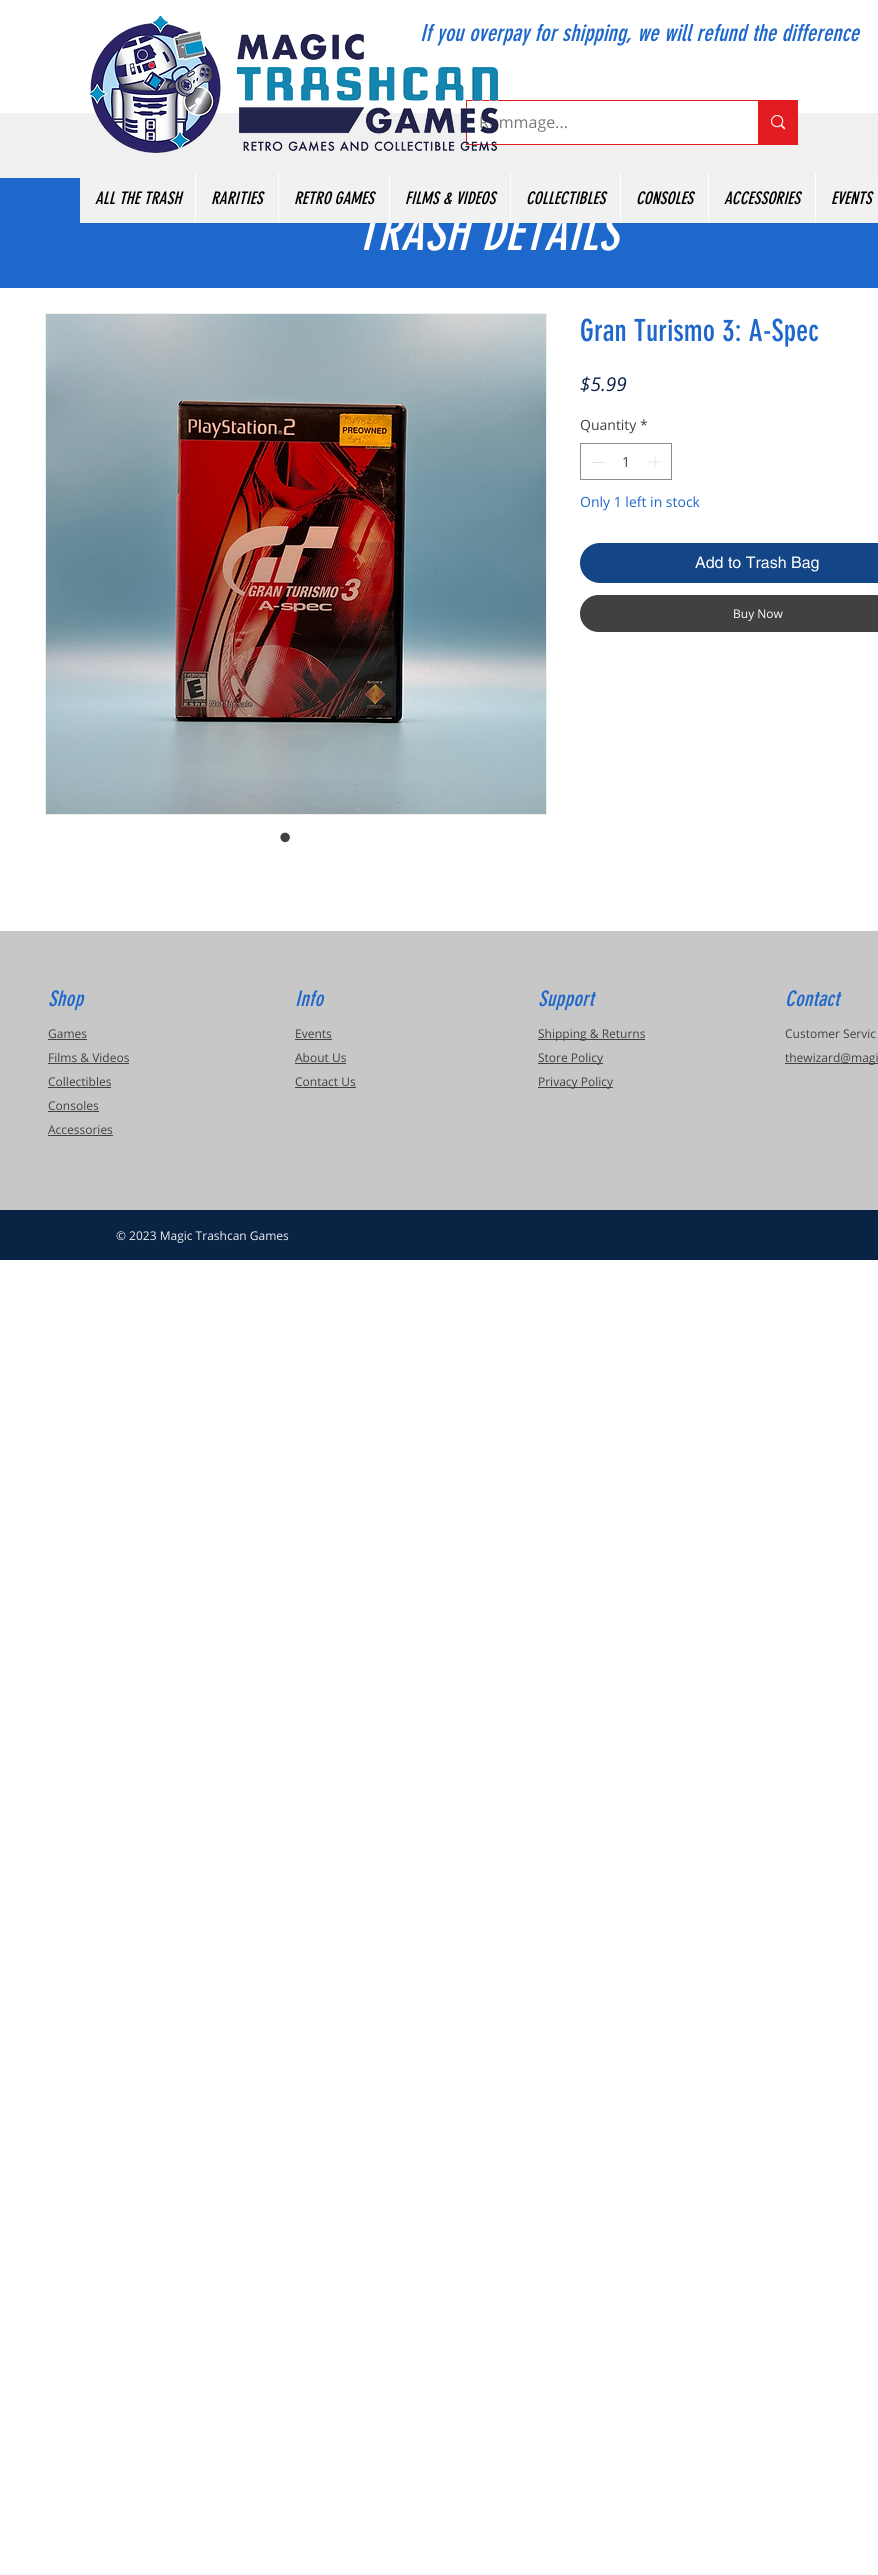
import math
import cairo

surface = cairo.ImageSurface(cairo.FORMAT_RGB24, 878, 2575)
ctx = cairo.Context(surface)
options = cairo.FontOptions()
options.set_hint_metrics(cairo.HINT_METRICS_OFF)
options.set_hint_style(cairo.HINT_STYLE_NONE)
ctx.set_font_options(options)
ctx.set_miter_limit(4)


def spaced_text(x, y, s, letter, word):
    ctx.move_to(x, y)
    for ch in s:
        ctx.show_text(ch)
        ctx.rel_move_to(letter + word * (ch == ' '), 0)


def round_rect(x, y, w, h, r):
    ctx.new_sub_path()
    for i, (u, v) in enumerate([(x + w - r, y + h - r), (x + r, y + h - r), (x + r, y + r), (x + w - r, y + r)]):
        ctx.arc(u, v, r, i * math.pi / 2, (i + 1) * math.pi / 2)
    ctx.close_path()


def picture(path, x, y, w, h):
    ctx.save()
    ctx.set_source_surface(cairo.ImageSurface.create_from_png(path), x, y)
    ctx.rectangle(x, y, w, h)
    ctx.fill()
    ctx.restore()


ctx.set_source_rgb(1, 1, 1)
ctx.paint()
ctx.select_font_face("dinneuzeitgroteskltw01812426", cairo.FONT_SLANT_ITALIC)
ctx.set_font_size(23)
ctx.set_source_rgb(0.118, 0.408, 0.796)
ctx.move_to(420, 41)
ctx.show_text("If you overpay for shipping, we will refund the difference")
ctx.set_source_rgb(0.941, 0.941, 0.941)
ctx.rectangle(0, 113, 878, 65)
ctx.fill()
ctx.rectangle(466.5, 100.5, 331, 44)
ctx.set_source_rgb(0.886, 0.11, 0.129)
ctx.set_line_width(1)
ctx.stroke()
ctx.set_source_rgb(1, 1, 1)
ctx.rectangle(467, 113, 291, 31)
ctx.fill()
ctx.select_font_face("Open Sans")
ctx.set_font_size(16)
ctx.set_source_rgb(0.471, 0.471, 0.471)
ctx.move_to(479, 128)
ctx.show_text("Rummage...")
ctx.set_source_rgb(0.886, 0.11, 0.129)
ctx.rectangle(758, 101, 39, 43)
ctx.fill()
picture("img1.png", 771, 115, 14, 15)
picture("img2.png", 89, 16, 132, 137)
picture("img3.png", 236, 33, 263, 119)
ctx.set_source_rgb(0.118, 0.408, 0.796)
ctx.rectangle(0, 178, 878, 110)
ctx.fill()
ctx.select_font_face("dinneuzeitgroteskltw01812426", cairo.FONT_SLANT_ITALIC)
ctx.set_font_size(50)
ctx.set_source_rgb(1, 1, 1)
spaced_text(356, 250, "TRASH DETAILS", 0.5, 0)
ctx.set_source_rgb(0.945, 0.945, 0.945)
ctx.rectangle(80, 178, 798, 45)
ctx.fill()
ctx.set_font_size(17)
ctx.set_source_rgb(0, 0, 0)
ctx.move_to(95, 204)
ctx.show_text("ALL THE TRASH")
ctx.set_source_rgb(1, 1, 1)
ctx.rectangle(195, 173, 1, 50)
ctx.fill()
ctx.set_source_rgb(0, 0, 0)
ctx.move_to(211, 204)
ctx.show_text("RARITIES")
ctx.set_source_rgb(1, 1, 1)
ctx.rectangle(278, 173, 1, 50)
ctx.fill()
ctx.set_source_rgb(0, 0, 0)
ctx.move_to(294, 204)
ctx.show_text("RETRO GAMES")
ctx.set_source_rgb(1, 1, 1)
ctx.rectangle(389, 173, 1, 50)
ctx.fill()
ctx.set_source_rgb(0, 0, 0)
ctx.move_to(405, 204)
ctx.show_text("FILMS & VIDEOS")
ctx.set_source_rgb(1, 1, 1)
ctx.rectangle(510, 173, 1, 50)
ctx.fill()
ctx.set_source_rgb(0, 0, 0)
ctx.move_to(526, 204)
ctx.show_text("COLLECTIBLES")
ctx.set_source_rgb(1, 1, 1)
ctx.rectangle(620, 173, 1, 50)
ctx.fill()
ctx.set_source_rgb(0, 0, 0)
ctx.move_to(636, 204)
ctx.show_text("CONSOLES")
ctx.set_source_rgb(1, 1, 1)
ctx.rectangle(708, 173, 1, 50)
ctx.fill()
ctx.set_source_rgb(0, 0, 0)
ctx.move_to(724, 204)
ctx.show_text("ACCESSORIES")
ctx.set_source_rgb(1, 1, 1)
ctx.rectangle(815, 173, 1, 50)
ctx.fill()
ctx.set_source_rgb(0, 0, 0)
ctx.move_to(831, 204)
ctx.show_text("EVENTS")
ctx.select_font_face("dinneuzeitgroteskltw01812426")
ctx.set_font_size(30)
ctx.set_source_rgb(0.118, 0.408, 0.796)
ctx.move_to(580, 341)
ctx.show_text("Gran Turismo 3: A-Spec")
ctx.select_font_face("Open Sans", cairo.FONT_SLANT_ITALIC)
ctx.set_font_size(19)
ctx.set_source_rgb(0.039, 0.137, 0.267)
ctx.move_to(580, 391)
ctx.show_text("$5.99")
ctx.select_font_face("Open Sans")
ctx.set_font_size(14)
ctx.set_source_rgb(0.255, 0.255, 0.255)
ctx.move_to(580, 430)
ctx.show_text("Quantity")
ctx.move_to(640, 430)
ctx.show_text("*")
ctx.rectangle(580.5, 443.5, 91, 36)
ctx.set_source_rgb(0.553, 0.553, 0.553)
ctx.stroke()
ctx.set_source_rgb(0.89, 0.89, 0.89)
ctx.rectangle(592, 462, 13, 1)
ctx.fill()
ctx.set_source_rgb(0.255, 0.255, 0.255)
ctx.move_to(622, 467)
ctx.show_text("1")
picture("img4.png", 648, 455, 14, 14)
ctx.set_source_rgb(0.118, 0.408, 0.796)
ctx.move_to(580, 507)
ctx.show_text("Only 1 left in stock")
ctx.set_source_rgb(0.078, 0.271, 0.529)
round_rect(580, 543, 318, 40, 20)
ctx.fill()
ctx.select_font_face("helvetica")
ctx.set_font_size(16)
ctx.set_source_rgb(1, 1, 1)
ctx.move_to(695, 568)
ctx.show_text("Add to Trash Bag")
ctx.set_source_rgb(0.255, 0.255, 0.255)
round_rect(580, 595, 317, 37, 18.5)
ctx.fill()
ctx.select_font_face("Open Sans")
ctx.set_font_size(12)
ctx.set_source_rgb(1, 1, 1)
ctx.move_to(733, 618)
ctx.show_text("Buy Now")
ctx.rectangle(45.5, 313.5, 501, 501)
ctx.set_source_rgb(0.941, 0.941, 0.941)
ctx.stroke()
picture("img5.png", 46, 314, 500, 500)
ctx.select_font_face("Liberation Sans")
ctx.set_font_size(35)
ctx.set_source_rgb(0.255, 0.255, 0.255)
ctx.move_to(279, 849)
ctx.show_text("•")
ctx.set_source_rgb(0.78, 0.78, 0.78)
ctx.rectangle(0, 931, 878, 279)
ctx.fill()
ctx.select_font_face("dinneuzeitgroteskltw01812426", cairo.FONT_SLANT_ITALIC)
ctx.set_font_size(21)
ctx.set_source_rgb(0.118, 0.408, 0.796)
spaced_text(48, 1006, "Shop", 0.25, 0)
ctx.select_font_face("Open Sans")
ctx.set_font_size(12)
ctx.set_source_rgb(0.255, 0.255, 0.255)
ctx.move_to(48, 1038)
ctx.show_text("Games")
ctx.rectangle(48, 1039, 39, 1)
ctx.fill()
ctx.move_to(48, 1062)
ctx.show_text("Films & Videos")
ctx.rectangle(48, 1063, 81, 1)
ctx.fill()
ctx.move_to(48, 1086)
ctx.show_text("Collectibles")
ctx.rectangle(48, 1087, 63, 1)
ctx.fill()
ctx.move_to(48, 1110)
ctx.show_text("Consoles")
ctx.rectangle(48, 1111, 51, 1)
ctx.fill()
ctx.move_to(48, 1134)
ctx.show_text("Accessories")
ctx.rectangle(48, 1135, 65, 1)
ctx.fill()
ctx.select_font_face("dinneuzeitgroteskltw01812426", cairo.FONT_SLANT_ITALIC)
ctx.set_font_size(21)
ctx.set_source_rgb(0.118, 0.408, 0.796)
spaced_text(295, 1006, "Info", 0.25, 0)
ctx.select_font_face("Open Sans")
ctx.set_font_size(12)
ctx.set_source_rgb(0.255, 0.255, 0.255)
ctx.move_to(295, 1038)
ctx.show_text("Events")
ctx.rectangle(295, 1039, 37, 1)
ctx.fill()
ctx.move_to(295, 1062)
ctx.show_text("About Us")
ctx.rectangle(295, 1063, 51, 1)
ctx.fill()
ctx.move_to(295, 1086)
ctx.show_text("Contact Us")
ctx.rectangle(295, 1087, 61, 1)
ctx.fill()
ctx.select_font_face("dinneuzeitgroteskltw01812426", cairo.FONT_SLANT_ITALIC)
ctx.set_font_size(21)
ctx.set_source_rgb(0.118, 0.408, 0.796)
spaced_text(538, 1006, "Support", 0.25, 0)
ctx.set_source_rgb(0.255, 0.255, 0.255)
ctx.rectangle(538, 1039, 107, 1)
ctx.fill()
ctx.select_font_face("Open Sans")
ctx.set_font_size(12)
ctx.move_to(538, 1038)
ctx.show_text("Shipping & Returns")
ctx.rectangle(538, 1063, 65, 1)
ctx.fill()
ctx.move_to(538, 1062)
ctx.show_text("Store Policy")
ctx.rectangle(538, 1087, 75, 1)
ctx.fill()
ctx.move_to(538, 1086)
ctx.show_text("Privacy Policy")
ctx.select_font_face("dinneuzeitgroteskltw01812426", cairo.FONT_SLANT_ITALIC)
ctx.set_font_size(21)
ctx.set_source_rgb(0.118, 0.408, 0.796)
spaced_text(785, 1006, "Contact", 0.25, 0)
ctx.select_font_face("Open Sans")
ctx.set_font_size(12)
ctx.set_source_rgb(0.255, 0.255, 0.255)
ctx.move_to(785, 1038)
ctx.show_text("Customer Servic")
ctx.rectangle(785, 1063, 93, 1)
ctx.fill()
ctx.move_to(785, 1062)
ctx.show_text("thewizard@magi")
ctx.set_source_rgb(0.039, 0.137, 0.267)
ctx.rectangle(0, 1210, 878, 50)
ctx.fill()
ctx.set_source_rgb(0.941, 0.941, 0.941)
ctx.move_to(116, 1240)
ctx.show_text("© 2023 Magic Trashcan Games")
surface.write_to_png("page.png")
